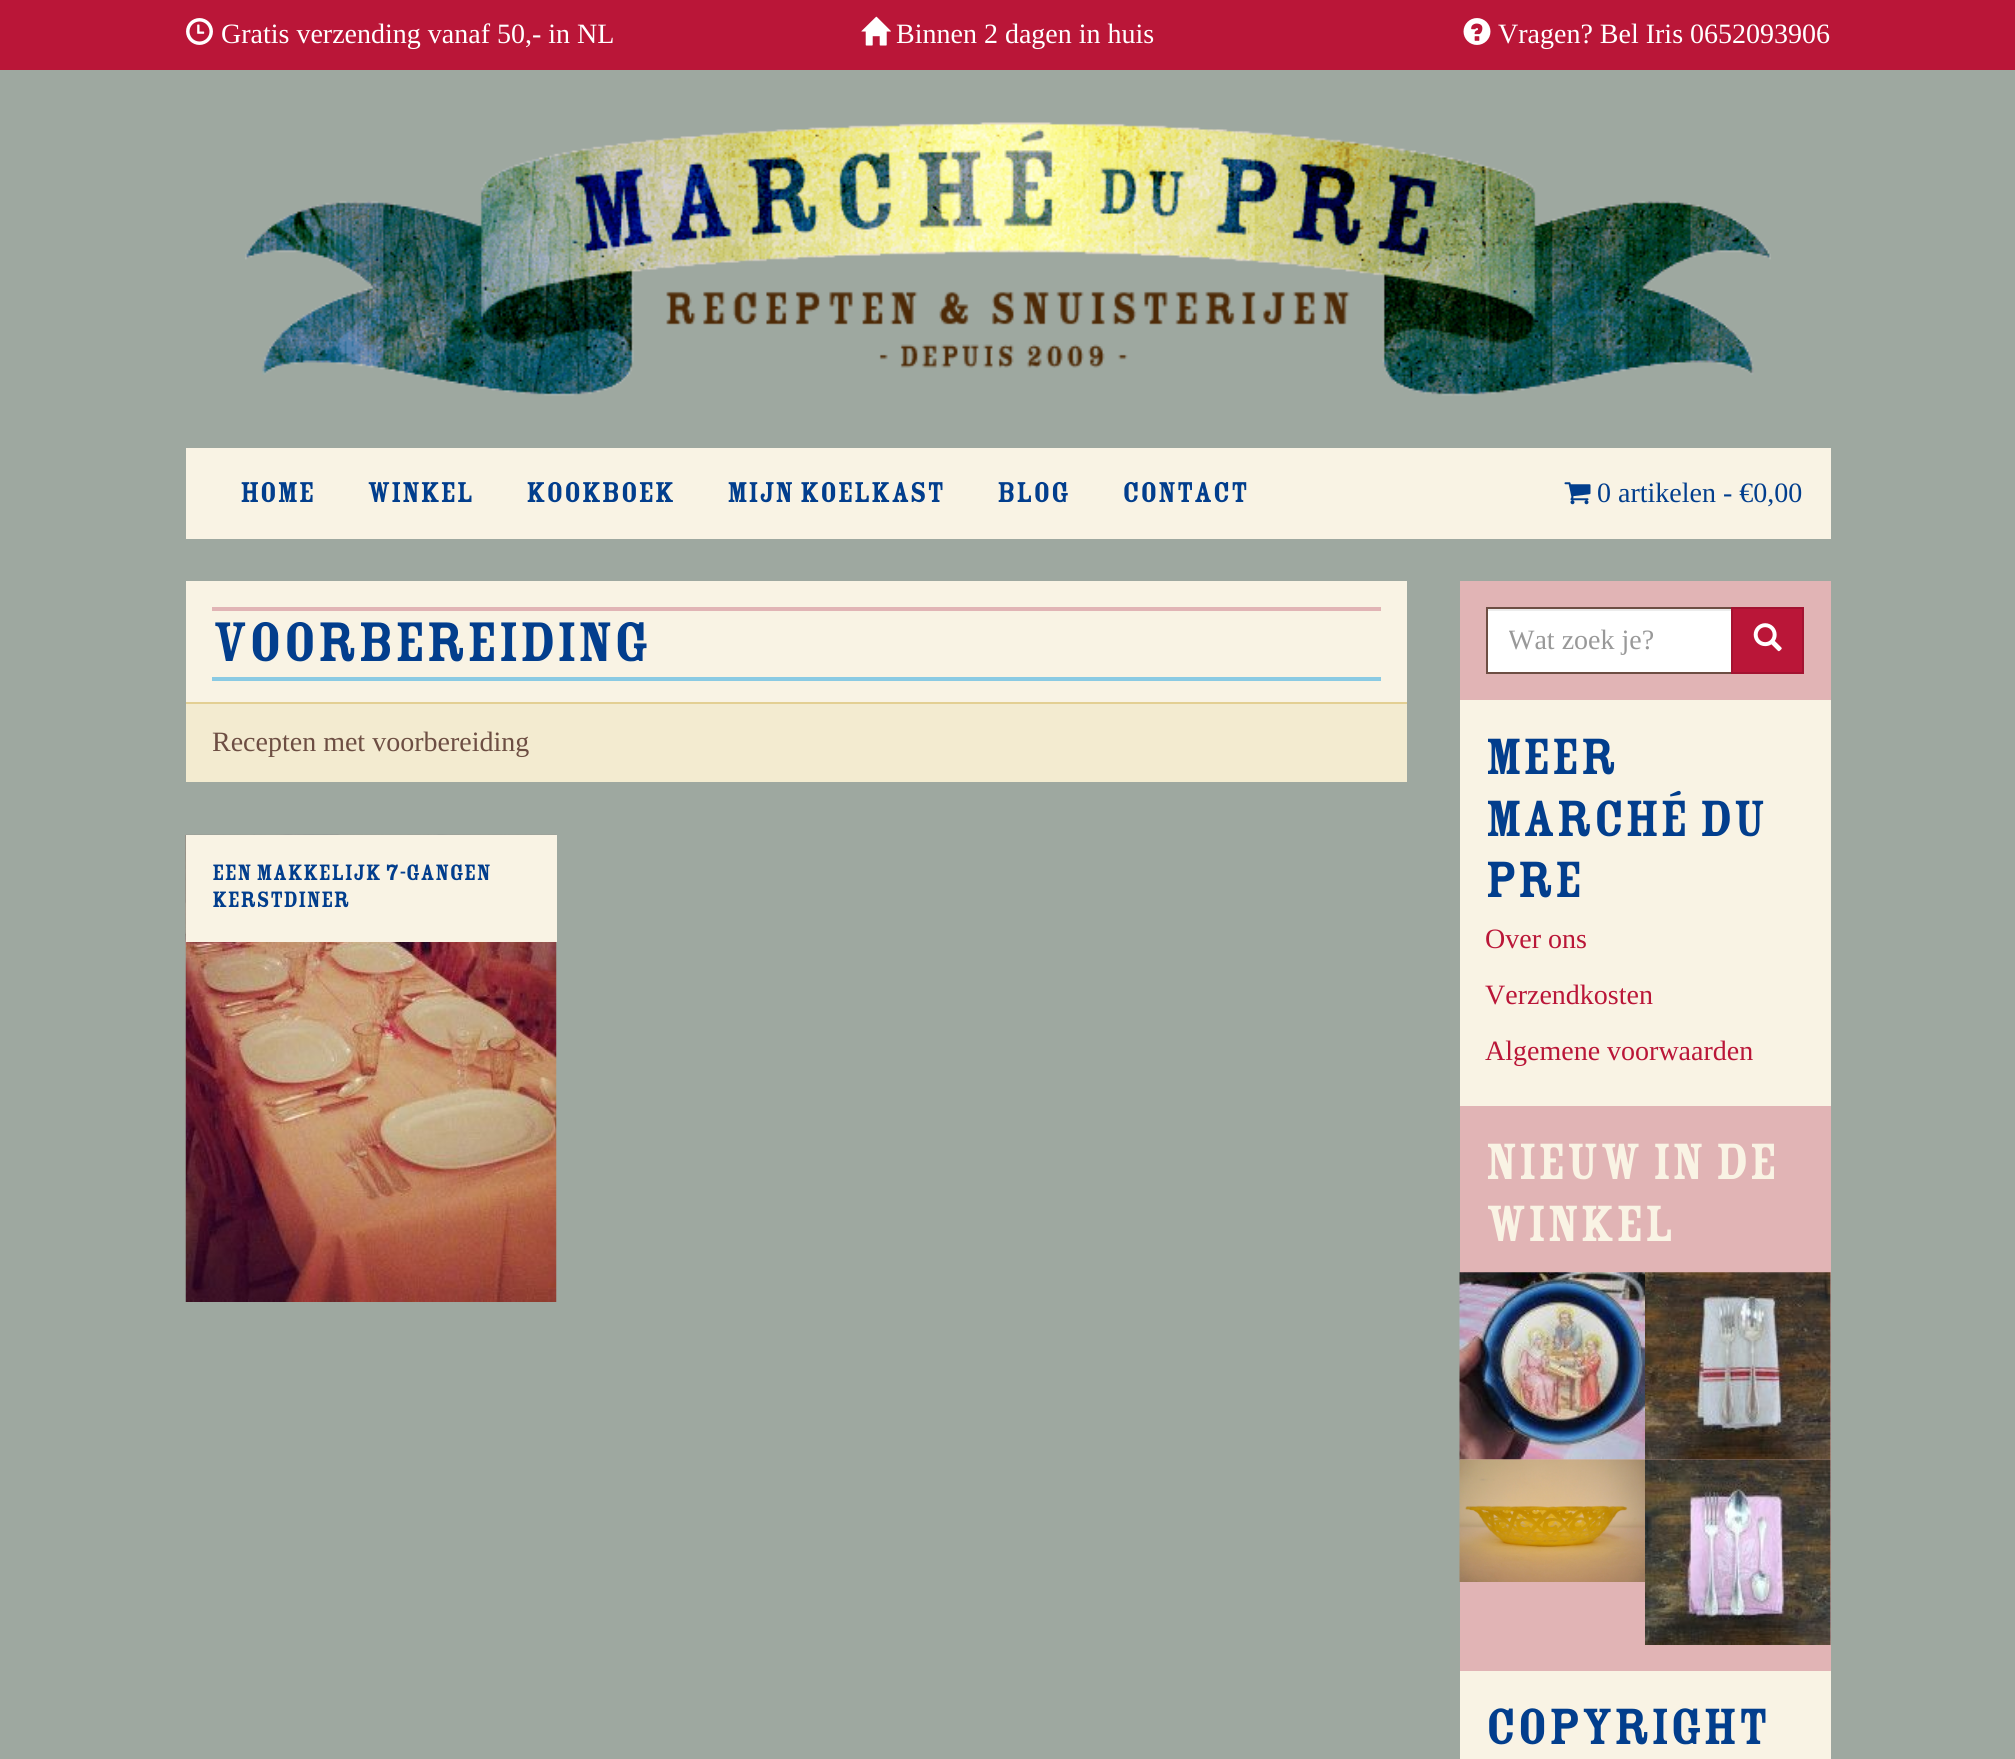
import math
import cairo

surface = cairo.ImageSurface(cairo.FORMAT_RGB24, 2015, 1759)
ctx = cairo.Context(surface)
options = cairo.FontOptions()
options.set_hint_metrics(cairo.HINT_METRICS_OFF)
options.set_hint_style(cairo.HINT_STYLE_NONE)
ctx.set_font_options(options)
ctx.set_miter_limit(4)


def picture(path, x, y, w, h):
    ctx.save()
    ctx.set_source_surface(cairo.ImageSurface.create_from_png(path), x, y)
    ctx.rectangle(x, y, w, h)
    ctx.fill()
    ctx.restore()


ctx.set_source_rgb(0.62, 0.659, 0.627)
ctx.paint()
ctx.set_source_rgb(0.729, 0.086, 0.22)
ctx.rectangle(0, 0, 2015, 70)
ctx.fill()
picture("img1.png", 186, 18, 27, 27)
ctx.select_font_face("Liberation Serif")
ctx.set_font_size(28)
ctx.set_source_rgb(1, 1, 1)
ctx.move_to(221, 43)
ctx.show_text("Gratis verzending vanaf 50,- in NL")
picture("img2.png", 861, 16, 30, 30)
ctx.move_to(896, 43)
ctx.show_text("Binnen 2 dagen in huis")
picture("img3.png", 1463, 18, 28, 27)
ctx.move_to(1498, 43)
ctx.show_text("Vragen? Bel Iris 0652093906")
picture("img4.png", 245, 122, 1526, 274)
ctx.set_source_rgb(0.973, 0.953, 0.894)
ctx.rectangle(186, 448, 1645, 91)
ctx.fill()
ctx.select_font_face("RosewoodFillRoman")
ctx.set_font_size(31.5)
ctx.set_source_rgb(0.008, 0.243, 0.553)
ctx.move_to(240, 502)
ctx.show_text("HOME")
ctx.move_to(367, 502)
ctx.show_text("WINKEL")
ctx.move_to(526, 502)
ctx.show_text("KOOKBOEK")
ctx.move_to(727, 502)
ctx.show_text("MIJN KOELKAST")
ctx.move_to(997, 502)
ctx.show_text("BLOG")
ctx.move_to(1122, 502)
ctx.show_text("CONTACT")
picture("img5.png", 1564, 482, 27, 23)
ctx.select_font_face("Liberation Serif")
ctx.set_font_size(28)
ctx.move_to(1597, 502)
ctx.show_text("0 artikelen - €0,00")
ctx.set_source_rgb(0.973, 0.953, 0.894)
ctx.rectangle(186, 581, 1221, 121)
ctx.fill()
ctx.set_source_rgb(0.882, 0.706, 0.71)
ctx.rectangle(212, 607, 1169, 4)
ctx.fill()
ctx.set_source_rgb(0.541, 0.792, 0.89)
ctx.rectangle(212, 677, 1169, 4)
ctx.fill()
ctx.select_font_face("RosewoodFillRoman")
ctx.set_font_size(61.25)
ctx.set_source_rgb(0.008, 0.243, 0.553)
ctx.move_to(212, 661)
ctx.show_text("voorbereiding")
ctx.set_source_rgb(0.953, 0.918, 0.816)
ctx.rectangle(186, 704, 1221, 78)
ctx.fill()
ctx.set_source_rgb(0.89, 0.812, 0.576)
ctx.rectangle(186, 702, 1221, 2)
ctx.fill()
ctx.select_font_face("Liberation Serif")
ctx.set_font_size(28)
ctx.set_source_rgb(0.427, 0.306, 0.263)
ctx.move_to(212, 751)
ctx.show_text("Recepten met voorbereiding")
picture("img6.png", 185, 834, 372, 468)
ctx.set_source_rgb(0.973, 0.953, 0.894)
ctx.rectangle(186, 835, 371, 107)
ctx.fill()
ctx.select_font_face("RosewoodFillRoman")
ctx.set_font_size(24.5)
ctx.set_source_rgb(0.008, 0.243, 0.553)
ctx.move_to(212, 880)
ctx.show_text("Een makkelijk 7-gangen")
ctx.move_to(212, 907)
ctx.show_text("kerstdiner")
ctx.set_source_rgb(0.882, 0.706, 0.71)
ctx.rectangle(1460, 581, 371, 119)
ctx.fill()
ctx.set_source_rgb(1, 1, 1)
ctx.rectangle(1488, 611, 243, 61)
ctx.fill()
ctx.set_source_rgb(0.925, 0.925, 0.925)
ctx.rectangle(1488, 609, 243, 2)
ctx.fill()
ctx.rectangle(1487, 608, 245, 65)
ctx.set_source_rgb(0.427, 0.306, 0.263)
ctx.stroke()
ctx.save()
ctx.rectangle(1509, 625, 194, 31)
ctx.clip()
ctx.select_font_face("Liberation Serif")
ctx.set_font_size(28)
ctx.set_source_rgb(0.6, 0.6, 0.6)
ctx.move_to(1508, 649)
ctx.show_text("Wat zoek je?")
ctx.restore()
ctx.set_source_rgb(0.729, 0.086, 0.22)
ctx.rectangle(1732, 608, 71, 65)
ctx.fill_preserve()
ctx.set_source_rgb(0.639, 0.075, 0.192)
ctx.stroke()
picture("img7.png", 1753, 623, 29, 29)
ctx.set_source_rgb(0.973, 0.953, 0.894)
ctx.rectangle(1460, 700, 371, 406)
ctx.fill()
ctx.set_font_size(56)
ctx.set_source_rgb(0.008, 0.243, 0.553)
ctx.move_to(1485, 774)
ctx.show_text("Meer")
ctx.move_to(1485, 836)
ctx.show_text("Marché du")
ctx.move_to(1485, 897)
ctx.show_text("Pre")
ctx.select_font_face("Liberation Serif")
ctx.set_font_size(28)
ctx.set_source_rgb(0.729, 0.086, 0.22)
ctx.move_to(1485, 948)
ctx.show_text("Over ons")
ctx.move_to(1485, 1004)
ctx.show_text("Verzendkosten")
ctx.move_to(1485, 1060)
ctx.show_text("Algemene voorwaarden")
ctx.set_source_rgb(0.882, 0.706, 0.71)
ctx.rectangle(1460, 1106, 371, 565)
ctx.fill()
ctx.select_font_face("RosewoodFillRoman")
ctx.set_font_size(56)
ctx.set_source_rgb(0.973, 0.953, 0.894)
ctx.move_to(1485, 1179)
ctx.show_text("Nieuw in de")
ctx.move_to(1485, 1241)
ctx.show_text("winkel")
picture("img8.png", 1459, 1272, 186, 188)
picture("img9.png", 1645, 1272, 186, 188)
picture("img10.png", 1459, 1459, 186, 123)
picture("img11.png", 1645, 1459, 186, 186)
ctx.rectangle(1460, 1671, 371, 88)
ctx.fill()
ctx.set_source_rgb(0.008, 0.243, 0.553)
ctx.move_to(1485, 1744)
ctx.show_text("Copyright")
surface.write_to_png("page.png")
